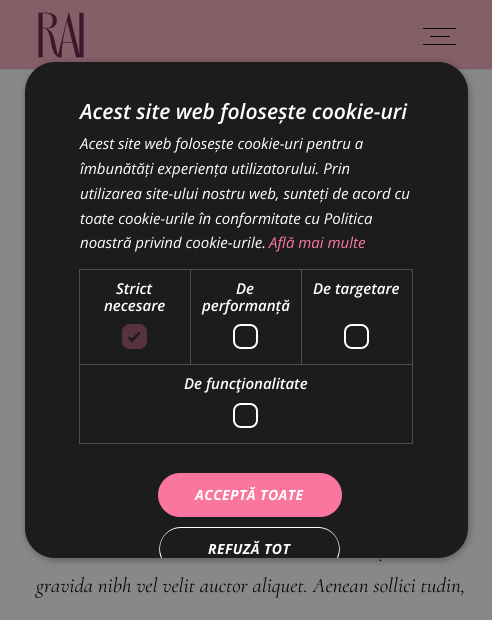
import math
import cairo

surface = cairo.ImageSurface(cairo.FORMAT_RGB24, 492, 620)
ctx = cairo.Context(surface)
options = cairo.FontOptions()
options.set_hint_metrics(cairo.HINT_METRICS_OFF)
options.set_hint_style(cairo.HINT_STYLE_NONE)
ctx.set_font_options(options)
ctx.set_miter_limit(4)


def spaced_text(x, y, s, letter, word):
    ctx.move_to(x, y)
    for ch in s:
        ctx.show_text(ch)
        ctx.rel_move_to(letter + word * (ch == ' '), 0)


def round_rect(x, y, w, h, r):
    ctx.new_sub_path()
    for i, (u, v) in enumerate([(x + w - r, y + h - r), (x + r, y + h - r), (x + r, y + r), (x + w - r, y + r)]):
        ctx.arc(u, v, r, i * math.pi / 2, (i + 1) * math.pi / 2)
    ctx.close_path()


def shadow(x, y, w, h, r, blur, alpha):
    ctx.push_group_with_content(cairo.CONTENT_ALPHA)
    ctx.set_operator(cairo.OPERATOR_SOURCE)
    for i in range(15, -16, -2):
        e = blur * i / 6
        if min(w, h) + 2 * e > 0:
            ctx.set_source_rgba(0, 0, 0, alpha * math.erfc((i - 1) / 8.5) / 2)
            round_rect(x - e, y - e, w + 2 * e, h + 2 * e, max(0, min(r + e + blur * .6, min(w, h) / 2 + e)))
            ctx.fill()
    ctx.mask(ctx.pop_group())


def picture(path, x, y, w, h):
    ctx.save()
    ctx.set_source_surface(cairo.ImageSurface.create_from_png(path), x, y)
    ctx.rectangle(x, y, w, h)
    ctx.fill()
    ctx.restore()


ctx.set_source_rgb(0.533, 0.533, 0.533)
ctx.paint()
ctx.set_source_rgb(0.518, 0.373, 0.408)
ctx.rectangle(0, 0, 492, 69)
ctx.fill()
ctx.set_source_rgb(0.478, 0.478, 0.478)
ctx.rectangle(0, 69, 492, 1)
ctx.fill()
picture("img1.png", 38, 12, 46, 46)
ctx.set_source_rgb(0, 0, 0)
shadow(26, 64, 443, 496, 30, 4, 0.35)
ctx.set_source_rgb(0.11, 0.11, 0.11)
round_rect(25, 62, 443, 496, 30)
ctx.fill()
ctx.select_font_face("Open Sans SemiBold", cairo.FONT_SLANT_ITALIC)
ctx.set_font_size(21)
ctx.set_source_rgb(1, 1, 1)
ctx.move_to(80, 119)
ctx.show_text("Acest site web folosește cookie-uri")
ctx.select_font_face("Open Sans", cairo.FONT_SLANT_ITALIC)
ctx.set_font_size(15)
ctx.move_to(80, 149)
ctx.show_text("Acest site web folosește cookie-uri pentru a")
ctx.move_to(80, 174)
ctx.show_text("îmbunătăți experiența utilizatorului. Prin")
ctx.move_to(80, 199)
ctx.show_text("utilizarea site-ului nostru web, sunteți de acord cu")
ctx.move_to(80, 224)
ctx.show_text("toate cookie-urile în conformitate cu Politica")
ctx.move_to(80, 248)
ctx.show_text("noastră privind cookie-urile.")
ctx.set_source_rgb(0.98, 0.463, 0.62)
ctx.move_to(269, 248)
ctx.show_text("Află mai multe")
ctx.rectangle(79.5, 269.5, 111, 95)
ctx.set_source_rgb(0.302, 0.302, 0.302)
ctx.set_line_width(1)
ctx.stroke()
ctx.select_font_face("Open Sans SemiBold", cairo.FONT_SLANT_ITALIC)
ctx.set_source_rgb(1, 1, 1)
ctx.move_to(116, 294)
ctx.show_text("Strict")
ctx.move_to(104, 311)
ctx.show_text("necesare")
ctx.set_source_rgb(0.337, 0.2, 0.243)
round_rect(122, 324, 25, 25, 8)
ctx.fill()
ctx.new_path()
ctx.move_to(128.5, 337)
ctx.line_to(132, 340.5)
ctx.line_to(139.5, 332.5)
ctx.set_source_rgb(0.11, 0.11, 0.11)
ctx.set_line_width(2.6)
ctx.stroke()
ctx.rectangle(190.5, 269.5, 111, 95)
ctx.set_source_rgb(0.302, 0.302, 0.302)
ctx.set_line_width(1)
ctx.stroke()
ctx.set_source_rgb(1, 1, 1)
ctx.move_to(236, 294)
ctx.show_text("De")
ctx.move_to(202, 311)
ctx.show_text("performanță")
round_rect(234, 325, 23, 23, 7)
ctx.set_line_width(2)
ctx.stroke()
ctx.rectangle(301.5, 269.5, 111, 95)
ctx.set_source_rgb(0.302, 0.302, 0.302)
ctx.set_line_width(1)
ctx.stroke()
ctx.set_source_rgb(1, 1, 1)
ctx.move_to(313, 294)
ctx.show_text("De targetare")
round_rect(345, 325, 23, 23, 7)
ctx.set_line_width(2)
ctx.stroke()
ctx.rectangle(79.5, 364.5, 333, 79)
ctx.set_source_rgb(0.302, 0.302, 0.302)
ctx.set_line_width(1)
ctx.stroke()
ctx.set_source_rgb(1, 1, 1)
ctx.move_to(184, 389)
ctx.show_text("De funcţionalitate")
round_rect(234, 404, 23, 23, 7)
ctx.set_line_width(2)
ctx.stroke()
ctx.set_source_rgb(0.98, 0.463, 0.62)
round_rect(158, 473, 184, 44, 22)
ctx.fill()
ctx.select_font_face("Open Sans", cairo.FONT_SLANT_ITALIC, cairo.FONT_WEIGHT_BOLD)
ctx.set_font_size(14)
ctx.set_source_rgb(1, 1, 1)
spaced_text(195, 500, "ACCEPTĂ TOATE", 0.4, 0)
ctx.new_path()
ctx.move_to(181, 527)
ctx.curve_to(165, 527, 155, 544, 161, 558)
ctx.line_to(162, 558)
ctx.curve_to(161, 555, 160, 552, 160, 549)
ctx.curve_to(160, 537, 169, 528, 181, 528)
ctx.line_to(318, 528)
ctx.curve_to(330, 528, 339, 537, 339, 549)
ctx.curve_to(339, 552, 338, 555, 337, 558)
ctx.line_to(338, 558)
ctx.curve_to(344, 544, 334, 527, 318, 527)
ctx.close_path()
ctx.fill()
spaced_text(208, 554, "REFUZĂ TOT", 0.4, 0)
ctx.set_source_rgb(0.035, 0.035, 0.035)
ctx.rectangle(423, 28, 33, 1)
ctx.fill()
ctx.rectangle(423, 44, 33, 1)
ctx.fill()
ctx.rectangle(430, 36, 20, 1)
ctx.fill()
ctx.select_font_face("Cormorant", cairo.FONT_SLANT_ITALIC)
ctx.set_font_size(21)
ctx.move_to(379, 561)
ctx.show_text(".")
ctx.move_to(36, 592)
ctx.show_text("gravida nibh vel velit auctor aliquet. Aenean sollici tudin,")
surface.write_to_png("page.png")
